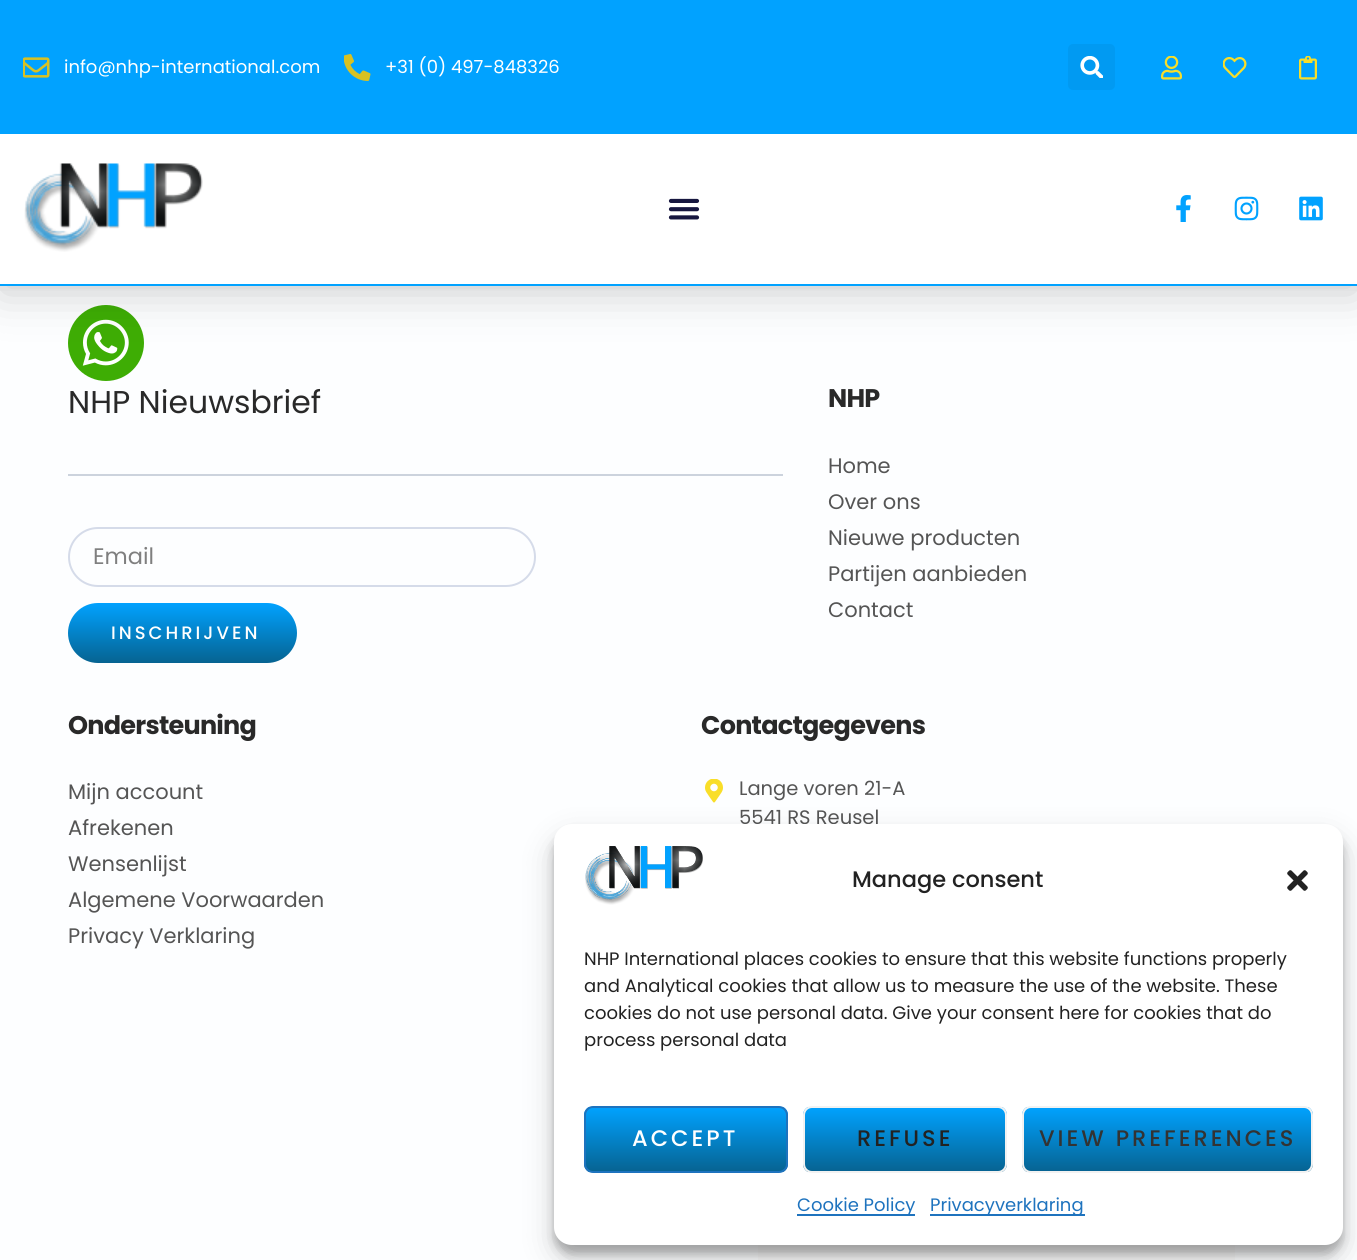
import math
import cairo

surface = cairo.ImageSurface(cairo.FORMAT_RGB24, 1357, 1260)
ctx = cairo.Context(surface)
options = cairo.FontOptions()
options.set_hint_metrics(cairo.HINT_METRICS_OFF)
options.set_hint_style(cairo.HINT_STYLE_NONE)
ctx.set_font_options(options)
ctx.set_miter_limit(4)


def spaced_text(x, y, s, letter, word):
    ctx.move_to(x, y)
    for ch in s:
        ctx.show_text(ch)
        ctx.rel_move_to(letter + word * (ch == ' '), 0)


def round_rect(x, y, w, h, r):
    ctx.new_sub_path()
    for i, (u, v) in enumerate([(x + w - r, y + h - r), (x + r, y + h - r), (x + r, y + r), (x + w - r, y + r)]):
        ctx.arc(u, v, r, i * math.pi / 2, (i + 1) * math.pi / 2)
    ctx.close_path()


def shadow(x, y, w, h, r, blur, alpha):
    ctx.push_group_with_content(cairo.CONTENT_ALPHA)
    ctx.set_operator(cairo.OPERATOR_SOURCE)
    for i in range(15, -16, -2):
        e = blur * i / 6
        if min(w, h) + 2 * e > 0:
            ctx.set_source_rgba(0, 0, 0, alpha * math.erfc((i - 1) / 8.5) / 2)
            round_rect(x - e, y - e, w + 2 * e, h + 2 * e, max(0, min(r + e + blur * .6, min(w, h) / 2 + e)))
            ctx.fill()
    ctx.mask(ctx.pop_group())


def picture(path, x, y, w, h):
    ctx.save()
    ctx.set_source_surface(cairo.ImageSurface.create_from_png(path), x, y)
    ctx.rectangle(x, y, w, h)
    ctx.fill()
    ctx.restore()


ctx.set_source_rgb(0.976, 0.984, 0.988)
ctx.paint()
ctx.set_source_rgb(0.992, 0.996, 1)
ctx.rectangle(0, 291, 1357, 969)
ctx.fill()
ctx.set_source_rgb(0.243, 0.678, 0.016)
ctx.arc(106, 343, 38, 0, 2 * math.pi)
ctx.fill()
picture("img12.png", 82, 319, 47, 47)
ctx.set_source_rgb(0, 0, 0)
shadow(0, 8, 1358, 285, 0, 22.5, 0.19)
ctx.set_source_rgb(0.004, 0.635, 1)
ctx.rectangle(0, 284, 1357, 2)
ctx.fill()
ctx.rectangle(0, 0, 1357, 134)
ctx.fill()
picture("img1.png", 23, 57, 27, 21)
ctx.select_font_face("Poppins")
ctx.set_font_size(18)
ctx.set_source_rgb(1, 1, 1)
ctx.move_to(64, 73)
ctx.show_text("info@nhp-international.com")
picture("img2.png", 344, 54, 27, 27)
ctx.move_to(385, 73)
ctx.show_text("+31 (0) 497-848326")
ctx.set_source_rgb(0.004, 0.604, 0.949)
round_rect(1068, 44, 47, 46, 5)
ctx.fill()
picture("img3.png", 1080, 56, 23, 22)
picture("img4.png", 1161, 56, 21, 24)
picture("img5.png", 1223, 57, 24, 21)
picture("img6.png", 1299, 56, 18, 24)
ctx.set_source_rgb(1, 1, 1)
ctx.rectangle(0, 134, 1357, 150)
ctx.fill()
picture("img7.png", 24, 163, 179, 89)
picture("img8.png", 668, 198, 32, 22)
picture("img9.png", 1176, 195, 15, 27)
picture("img10.png", 1234, 196, 25, 25)
picture("img11.png", 1299, 196, 24, 25)
ctx.set_font_size(31.5)
ctx.set_source_rgb(0.161, 0.161, 0.161)
ctx.move_to(68, 413)
ctx.show_text("NHP Nieuwsbrief")
ctx.set_source_rgb(0.8, 0.827, 0.867)
ctx.rectangle(68, 474, 715, 2)
ctx.fill()
round_rect(69, 528, 466, 58, 29)
ctx.set_source_rgb(0.835, 0.859, 0.914)
ctx.stroke()
ctx.set_font_size(22.5)
ctx.set_source_rgb(0.498, 0.498, 0.498)
ctx.move_to(93, 564)
ctx.show_text("Email")
gradient = cairo.LinearGradient(182, 603, 182, 663)
gradient.add_color_stop_rgba(0, 0.004, 0.635, 1, 1)
gradient.add_color_stop_rgba(1, 0.024, 0.388, 0.569, 1)
ctx.set_source(gradient)
round_rect(68, 603, 229, 60, 30)
ctx.fill()
ctx.select_font_face("Poppins Medium")
ctx.set_font_size(18)
ctx.set_source_rgb(1, 1, 1)
spaced_text(111, 639, "INSCHRIJVEN", 3, 0)
ctx.select_font_face("Poppins", cairo.FONT_SLANT_NORMAL, cairo.FONT_WEIGHT_BOLD)
ctx.set_font_size(25.5)
ctx.set_source_rgb(0.161, 0.161, 0.161)
spaced_text(828, 407, "NHP", -0.75, 0)
ctx.select_font_face("Poppins")
ctx.set_font_size(21)
ctx.set_source_rgb(0.333, 0.333, 0.333)
ctx.move_to(828, 473)
ctx.show_text("Home")
ctx.move_to(828, 509)
ctx.show_text("Over ons")
ctx.move_to(828, 545)
ctx.show_text("Nieuwe producten")
ctx.move_to(828, 581)
ctx.show_text("Partijen aanbieden")
ctx.move_to(828, 617)
ctx.show_text("Contact")
ctx.select_font_face("Poppins", cairo.FONT_SLANT_NORMAL, cairo.FONT_WEIGHT_BOLD)
ctx.set_font_size(25.5)
ctx.set_source_rgb(0.161, 0.161, 0.161)
spaced_text(68, 734, "Ondersteuning", -0.75, 0)
ctx.select_font_face("Poppins")
ctx.set_font_size(21)
ctx.set_source_rgb(0.333, 0.333, 0.333)
ctx.move_to(68, 799)
ctx.show_text("Mijn account")
ctx.move_to(68, 835)
ctx.show_text("Afrekenen")
ctx.move_to(68, 871)
ctx.show_text("Wensenlijst")
ctx.move_to(68, 907)
ctx.show_text("Algemene Voorwaarden")
ctx.move_to(68, 943)
ctx.show_text("Privacy Verklaring")
ctx.select_font_face("Poppins", cairo.FONT_SLANT_NORMAL, cairo.FONT_WEIGHT_BOLD)
ctx.set_font_size(25.5)
ctx.set_source_rgb(0.161, 0.161, 0.161)
spaced_text(701, 734, "Contactgegevens", -0.75, 0)
picture("img13.png", 705, 779, 18, 24)
ctx.select_font_face("Poppins")
ctx.set_font_size(19.5)
ctx.set_source_rgb(0.333, 0.333, 0.333)
ctx.move_to(739, 795)
ctx.show_text("Lange voren 21-A")
ctx.move_to(739, 824)
ctx.show_text("5541 RS Reusel")
ctx.set_source_rgb(0.98, 0.98, 0.98)
ctx.rectangle(758, 1245, 477, 15)
ctx.fill()
ctx.set_source_rgb(0, 0, 0)
shadow(554, 833, 789, 421, 18, 4.5, 0.23)
shadow(554, 839, 789, 421, 18, 15, 0.19)
ctx.set_source_rgb(1, 1, 1)
round_rect(554, 824, 789, 421, 18)
ctx.fill()
picture("img14.png", 585, 846, 118, 59)
ctx.select_font_face("Poppins Medium")
ctx.set_font_size(22.5)
ctx.set_source_rgb(0.133, 0.133, 0.133)
ctx.move_to(852, 887)
ctx.show_text("Manage consent")
picture("img15.png", 1287, 870, 21, 21)
ctx.select_font_face("Poppins")
ctx.set_font_size(18)
ctx.move_to(584, 965)
ctx.show_text("NHP International places cookies to ensure that this website functions properly")
ctx.move_to(584, 992)
ctx.show_text("and Analytical cookies that allow us to measure the use of the website. These")
ctx.move_to(584, 1019)
ctx.show_text("cookies do not use personal data. Give your consent here for cookies that do")
ctx.move_to(584, 1046)
ctx.show_text("process personal data")
ctx.save()
round_rect(584, 1106, 204, 67, 9)
ctx.clip()
gradient = cairo.LinearGradient(686, 1107, 686, 1172)
gradient.add_color_stop_rgba(0, 0.004, 0.635, 1, 1)
gradient.add_color_stop_rgba(1, 0.024, 0.388, 0.569, 1)
ctx.set_source(gradient)
ctx.rectangle(584, 1107, 204, 65)
ctx.fill()
ctx.restore()
round_rect(585, 1107, 202, 65, 8)
ctx.set_source_rgb(0.118, 0.451, 0.745)
ctx.stroke()
ctx.select_font_face("Poppins Medium")
ctx.set_font_size(22.5)
ctx.set_source_rgb(1, 1, 1)
spaced_text(632, 1146, "ACCEPT", 3, 0)
ctx.save()
round_rect(803, 1106, 204, 67, 9)
ctx.clip()
gradient = cairo.LinearGradient(905, 1107, 905, 1172)
gradient.add_color_stop_rgba(0, 0.004, 0.635, 1, 1)
gradient.add_color_stop_rgba(1, 0.024, 0.388, 0.569, 1)
ctx.set_source(gradient)
ctx.rectangle(803, 1107, 204, 65)
ctx.fill()
ctx.restore()
round_rect(804, 1107, 202, 65, 8)
ctx.set_source_rgb(0.949, 0.949, 0.949)
ctx.stroke()
ctx.set_source_rgb(0.133, 0.133, 0.133)
spaced_text(857, 1146, "REFUSE", 3, 0)
ctx.save()
round_rect(1022, 1106, 291, 67, 9)
ctx.clip()
gradient = cairo.LinearGradient(1167, 1107, 1167, 1172)
gradient.add_color_stop_rgba(0, 0.004, 0.635, 1, 1)
gradient.add_color_stop_rgba(1, 0.024, 0.388, 0.569, 1)
ctx.set_source(gradient)
ctx.rectangle(1022, 1107, 291, 65)
ctx.fill()
ctx.restore()
round_rect(1023, 1107, 289, 65, 8)
ctx.set_source_rgb(0.949, 0.949, 0.949)
ctx.stroke()
ctx.set_source_rgb(0.2, 0.2, 0.2)
spaced_text(1039, 1146, "VIEW PREFERENCES", 3, 0)
ctx.set_source_rgb(0.118, 0.451, 0.745)
ctx.rectangle(797, 1214, 118, 2)
ctx.fill()
ctx.select_font_face("Poppins")
ctx.set_font_size(18)
ctx.move_to(797, 1211)
ctx.show_text("Cookie Policy")
ctx.rectangle(930, 1214, 155, 2)
ctx.fill()
ctx.move_to(930, 1211)
ctx.show_text("Privacyverklaring")
surface.write_to_png("page.png")
